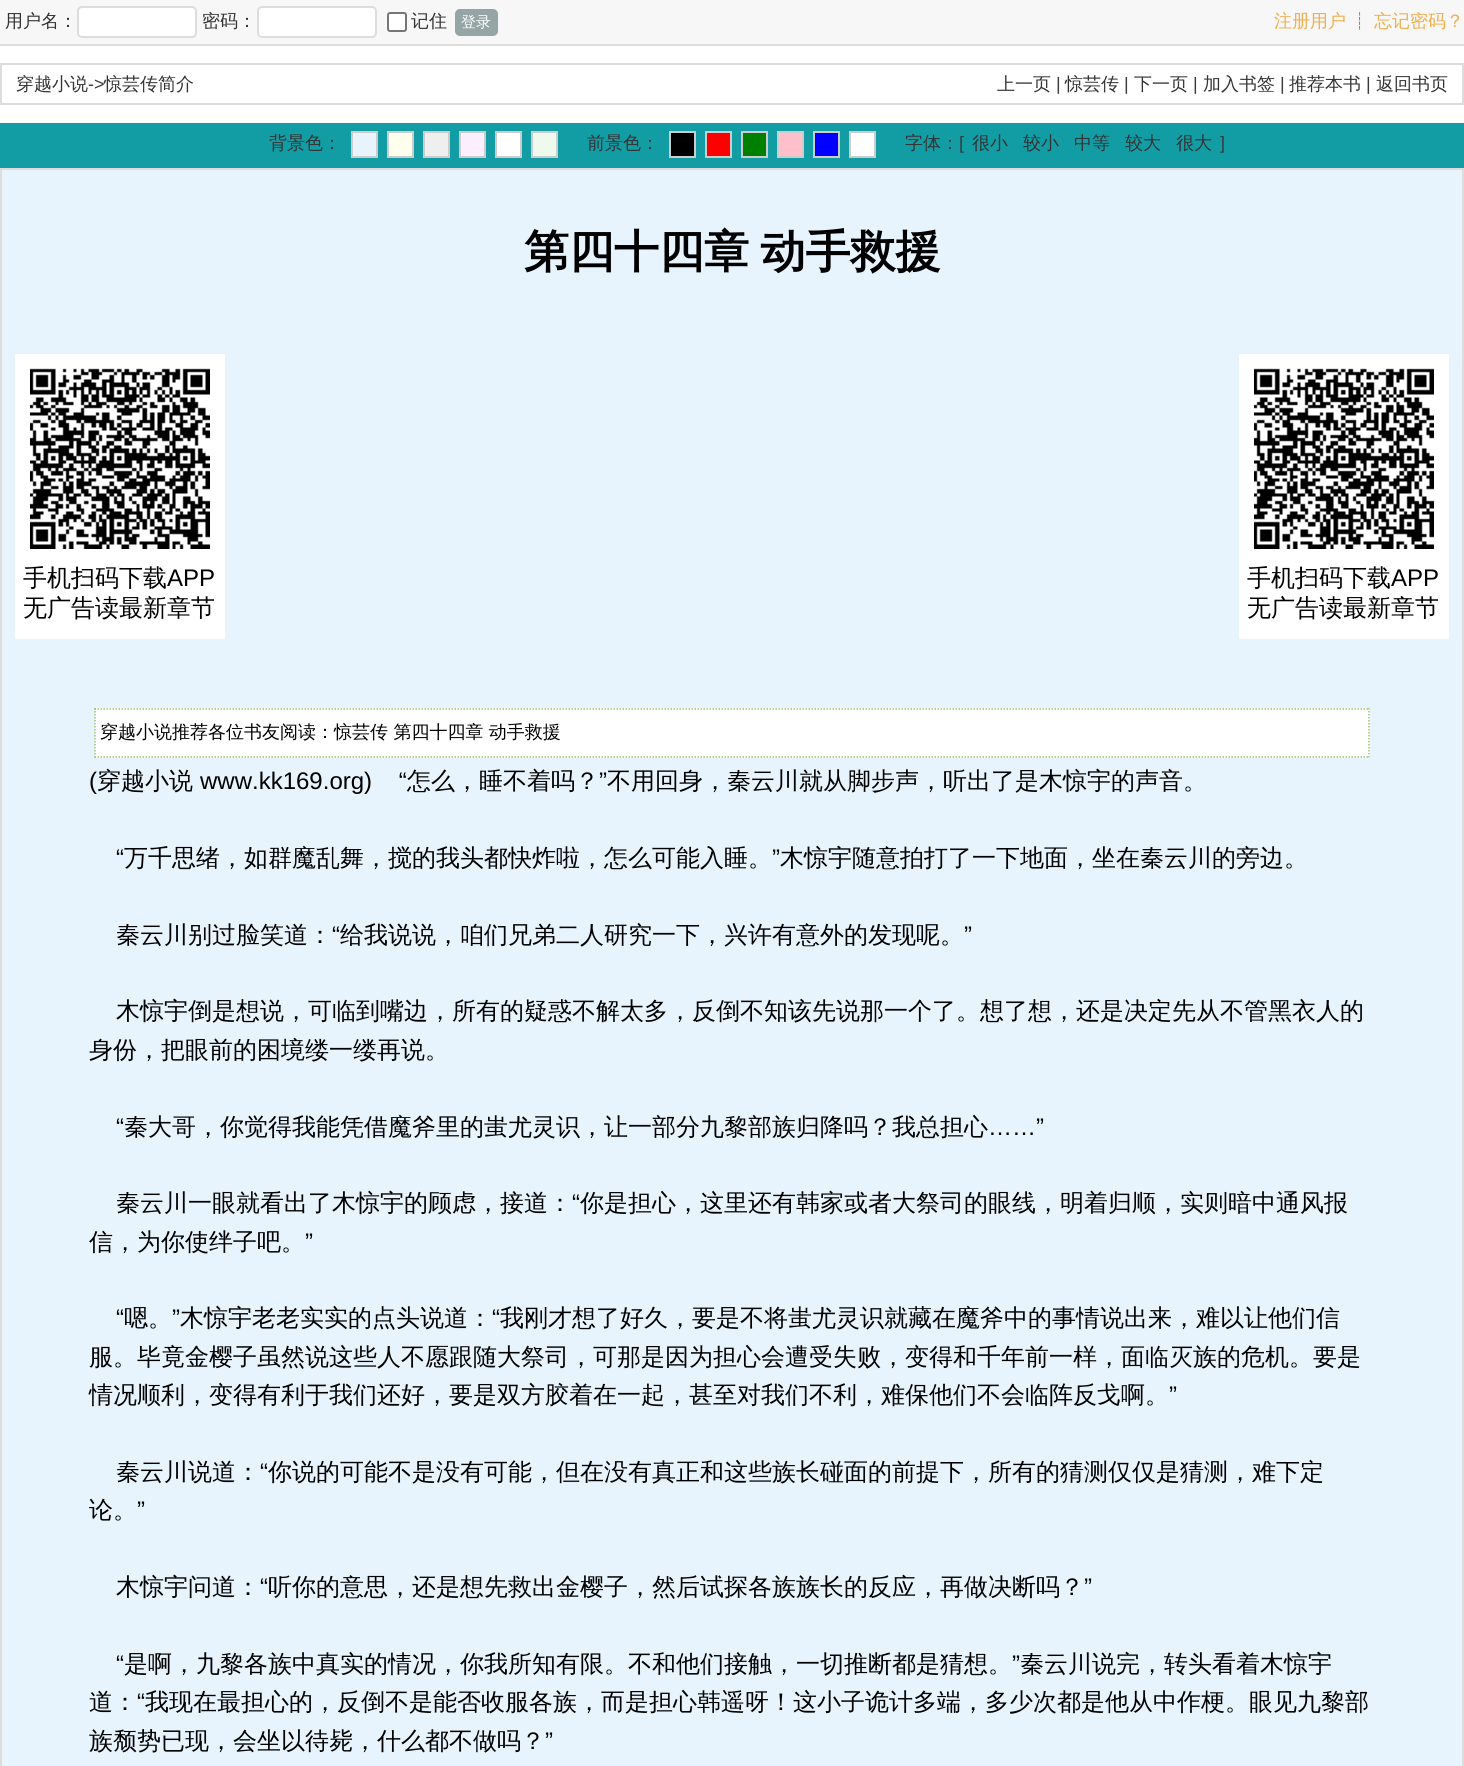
import math
import cairo

surface = cairo.ImageSurface(cairo.FORMAT_RGB24, 1464, 1766)
ctx = cairo.Context(surface)
options = cairo.FontOptions()
options.set_hint_metrics(cairo.HINT_METRICS_OFF)
options.set_hint_style(cairo.HINT_STYLE_NONE)
ctx.set_font_options(options)
ctx.set_miter_limit(4)


def spaced_text(x, y, s, letter, word):
    ctx.move_to(x, y)
    for ch in s:
        ctx.show_text(ch)
        ctx.rel_move_to(letter + word * (ch == ' '), 0)


def round_rect(x, y, w, h, r):
    ctx.new_sub_path()
    for i, (u, v) in enumerate([(x + w - r, y + h - r), (x + r, y + h - r), (x + r, y + r), (x + w - r, y + r)]):
        ctx.arc(u, v, r, i * math.pi / 2, (i + 1) * math.pi / 2)
    ctx.close_path()


def picture(path, x, y, w, h):
    ctx.save()
    ctx.set_source_surface(cairo.ImageSurface.create_from_png(path), x, y)
    ctx.rectangle(x, y, w, h)
    ctx.fill()
    ctx.restore()


ctx.set_source_rgb(1, 1, 1)
ctx.paint()
ctx.set_source_rgb(0.965, 0.965, 0.965)
ctx.rectangle(0, 0, 1464, 44)
ctx.fill()
ctx.set_source_rgb(0.867, 0.867, 0.867)
ctx.rectangle(0, 44, 1464, 2)
ctx.fill()
ctx.select_font_face("WenQuanYi Zen Hei Medium")
ctx.set_font_size(18)
ctx.set_source_rgb(0.2, 0.2, 0.2)
ctx.move_to(5, 27)
ctx.show_text("用户名：")
ctx.set_source_rgb(1, 1, 1)
round_rect(78, 7, 118, 30, 4)
ctx.fill_preserve()
ctx.set_source_rgb(0.867, 0.867, 0.867)
ctx.stroke()
ctx.set_source_rgb(0.2, 0.2, 0.2)
ctx.move_to(202, 27)
ctx.show_text("密码：")
ctx.set_source_rgb(1, 1, 1)
round_rect(258, 7, 118, 30, 4)
ctx.fill_preserve()
ctx.set_source_rgb(0.867, 0.867, 0.867)
ctx.stroke()
ctx.set_source_rgb(1, 1, 1)
round_rect(388, 13, 18, 18, 2)
ctx.fill_preserve()
ctx.set_source_rgb(0.463, 0.463, 0.463)
ctx.stroke()
ctx.set_source_rgb(0.2, 0.2, 0.2)
ctx.move_to(411, 27)
ctx.show_text("记住")
ctx.set_source_rgb(0.584, 0.647, 0.651)
round_rect(455, 9, 43, 27, 5)
ctx.fill()
ctx.set_font_size(15)
ctx.set_source_rgb(1, 1, 1)
ctx.move_to(461, 27)
ctx.show_text("登录")
ctx.set_font_size(18)
ctx.set_source_rgb(0.941, 0.678, 0.306)
ctx.move_to(1274, 27)
ctx.show_text("注册用户")
ctx.set_source_rgb(0.2, 0.2, 0.2)
ctx.move_to(1351, 27)
ctx.show_text("┊")
ctx.set_source_rgb(0.941, 0.678, 0.306)
ctx.move_to(1374, 27)
ctx.show_text("忘记密码？")
ctx.rectangle(1, 64, 1462, 40)
ctx.set_source_rgb(0.867, 0.867, 0.867)
ctx.stroke()
ctx.set_source_rgb(0.2, 0.2, 0.2)
ctx.move_to(16, 90)
ctx.show_text("穿越小说")
ctx.select_font_face("Liberation Sans")
ctx.set_source_rgb(0.216, 0.227, 0.235)
ctx.move_to(88, 90)
ctx.show_text("->")
ctx.select_font_face("WenQuanYi Zen Hei Medium")
ctx.set_source_rgb(0.2, 0.2, 0.2)
ctx.move_to(104, 90)
ctx.show_text("惊芸传简介")
ctx.move_to(997, 90)
ctx.show_text("上一页")
ctx.select_font_face("Liberation Sans")
ctx.set_source_rgb(0.216, 0.227, 0.235)
ctx.move_to(1056, 90)
ctx.show_text("|")
ctx.select_font_face("WenQuanYi Zen Hei Medium")
ctx.set_source_rgb(0.2, 0.2, 0.2)
ctx.move_to(1065, 90)
ctx.show_text("惊芸传")
ctx.select_font_face("Liberation Sans")
ctx.set_source_rgb(0.216, 0.227, 0.235)
ctx.move_to(1124, 90)
ctx.show_text("|")
ctx.select_font_face("WenQuanYi Zen Hei Medium")
ctx.set_source_rgb(0.2, 0.2, 0.2)
ctx.move_to(1134, 90)
ctx.show_text("下一页")
ctx.select_font_face("Liberation Sans")
ctx.set_source_rgb(0.216, 0.227, 0.235)
ctx.move_to(1193, 90)
ctx.show_text("|")
ctx.select_font_face("WenQuanYi Zen Hei Medium")
ctx.set_source_rgb(0.2, 0.2, 0.2)
ctx.move_to(1203, 90)
ctx.show_text("加入书签")
ctx.select_font_face("Liberation Sans")
ctx.set_source_rgb(0.216, 0.227, 0.235)
ctx.move_to(1280, 90)
ctx.show_text("|")
ctx.select_font_face("WenQuanYi Zen Hei Medium")
ctx.set_source_rgb(0.2, 0.2, 0.2)
ctx.move_to(1289, 90)
ctx.show_text("推荐本书")
ctx.select_font_face("Liberation Sans")
ctx.set_source_rgb(0.216, 0.227, 0.235)
ctx.move_to(1366, 90)
ctx.show_text("|")
ctx.select_font_face("WenQuanYi Zen Hei Medium")
ctx.set_source_rgb(0.2, 0.2, 0.2)
ctx.move_to(1376, 90)
ctx.show_text("返回书页")
ctx.set_source_rgb(0.071, 0.616, 0.647)
ctx.rectangle(0, 123, 1464, 45)
ctx.fill()
ctx.set_source_rgb(0.2, 0.2, 0.2)
ctx.move_to(269, 149)
ctx.show_text("背景色：")
ctx.set_source_rgb(0.906, 0.957, 0.996)
ctx.rectangle(352, 132, 25, 25)
ctx.fill_preserve()
ctx.set_source_rgb(0.8, 0.8, 0.8)
ctx.stroke()
ctx.set_source_rgb(1, 1, 0.929)
ctx.rectangle(388, 132, 25, 25)
ctx.fill_preserve()
ctx.set_source_rgb(0.8, 0.8, 0.8)
ctx.stroke()
ctx.set_source_rgb(0.937, 0.937, 0.937)
ctx.rectangle(424, 132, 25, 25)
ctx.fill_preserve()
ctx.set_source_rgb(0.8, 0.8, 0.8)
ctx.stroke()
ctx.set_source_rgb(0.988, 0.937, 1)
ctx.rectangle(460, 132, 25, 25)
ctx.fill_preserve()
ctx.set_source_rgb(0.8, 0.8, 0.8)
ctx.stroke()
ctx.set_source_rgb(1, 1, 1)
ctx.rectangle(496, 132, 25, 25)
ctx.fill_preserve()
ctx.set_source_rgb(0.8, 0.8, 0.8)
ctx.stroke()
ctx.set_source_rgb(0.933, 0.98, 0.933)
ctx.rectangle(532, 132, 25, 25)
ctx.fill_preserve()
ctx.set_source_rgb(0.8, 0.8, 0.8)
ctx.stroke()
ctx.set_source_rgb(0.2, 0.2, 0.2)
ctx.move_to(587, 149)
ctx.show_text("前景色：")
ctx.set_source_rgb(0, 0, 0)
ctx.rectangle(670, 132, 25, 25)
ctx.fill_preserve()
ctx.set_source_rgb(0.8, 0.8, 0.8)
ctx.stroke()
ctx.set_source_rgb(1, 0, 0)
ctx.rectangle(706, 132, 25, 25)
ctx.fill_preserve()
ctx.set_source_rgb(0.8, 0.8, 0.8)
ctx.stroke()
ctx.set_source_rgb(0, 0.502, 0)
ctx.rectangle(742, 132, 25, 25)
ctx.fill_preserve()
ctx.set_source_rgb(0.8, 0.8, 0.8)
ctx.stroke()
ctx.set_source_rgb(1, 0.753, 0.796)
ctx.rectangle(778, 132, 25, 25)
ctx.fill_preserve()
ctx.set_source_rgb(0.8, 0.8, 0.8)
ctx.stroke()
ctx.set_source_rgb(0, 0, 1)
ctx.rectangle(814, 132, 25, 25)
ctx.fill_preserve()
ctx.set_source_rgb(0.8, 0.8, 0.8)
ctx.stroke()
ctx.set_source_rgb(1, 1, 1)
ctx.rectangle(850, 132, 25, 25)
ctx.fill_preserve()
ctx.set_source_rgb(0.8, 0.8, 0.8)
ctx.stroke()
ctx.set_source_rgb(0.2, 0.2, 0.2)
ctx.move_to(905, 149)
ctx.show_text("字体：")
ctx.select_font_face("Liberation Sans")
ctx.set_source_rgb(0.216, 0.227, 0.235)
ctx.move_to(959, 149)
ctx.show_text("[")
ctx.select_font_face("WenQuanYi Zen Hei Medium")
ctx.set_source_rgb(0.2, 0.2, 0.2)
ctx.move_to(972, 149)
ctx.show_text("很小")
ctx.move_to(1023, 149)
ctx.show_text("较小")
ctx.move_to(1074, 149)
ctx.show_text("中等")
ctx.move_to(1125, 149)
ctx.show_text("较大")
ctx.move_to(1176, 149)
ctx.show_text("很大")
ctx.select_font_face("Liberation Sans")
ctx.set_source_rgb(0.216, 0.227, 0.235)
ctx.move_to(1220, 149)
ctx.show_text("]")
ctx.set_source_rgb(0.906, 0.957, 0.996)
ctx.rectangle(1, 169, 1462, 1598)
ctx.fill_preserve()
ctx.set_source_rgb(0.867, 0.867, 0.867)
ctx.stroke()
ctx.select_font_face("WenQuanYi Zen Hei", cairo.FONT_SLANT_NORMAL, cairo.FONT_WEIGHT_BOLD)
ctx.set_font_size(45)
ctx.set_source_rgb(0, 0, 0)
spaced_text(524, 267, "第四十四章 动手救援", 0, -2)
ctx.set_source_rgb(1, 1, 1)
ctx.rectangle(95, 708, 1275, 50)
ctx.fill()
ctx.new_path()
ctx.move_to(94.5, 709)
ctx.line_to(1369.5, 709)
ctx.set_source_rgb(0.635, 0.776, 0.427)
ctx.set_line_width(1.5)
ctx.set_dash([1.5, 1.5])
ctx.stroke()
ctx.new_path()
ctx.move_to(1369, 708)
ctx.line_to(1369, 757.5)
ctx.stroke()
ctx.new_path()
ctx.move_to(94.5, 757)
ctx.line_to(1369.5, 757)
ctx.stroke()
ctx.new_path()
ctx.move_to(95, 708)
ctx.line_to(95, 757.5)
ctx.stroke()
ctx.select_font_face("WenQuanYi Zen Hei Medium")
ctx.set_font_size(18)
ctx.set_source_rgb(0, 0, 0)
ctx.move_to(100, 738)
ctx.show_text("穿越小说推荐各位书友阅读：惊芸传 第四十四章 动手救援")
ctx.select_font_face("Liberation Sans")
ctx.set_font_size(24)
ctx.move_to(89, 789)
ctx.show_text("(")
ctx.select_font_face("WenQuanYi Zen Hei Medium")
ctx.move_to(97, 789)
ctx.show_text("穿越小说")
ctx.select_font_face("Liberation Sans")
ctx.move_to(200, 789)
ctx.show_text("www.kk169.org)    “")
ctx.select_font_face("WenQuanYi Zen Hei Medium")
ctx.move_to(407, 789)
ctx.show_text("怎么，睡不着吗？")
ctx.select_font_face("Liberation Sans")
ctx.move_to(599, 789)
ctx.show_text("”")
ctx.select_font_face("WenQuanYi Zen Hei Medium")
ctx.move_to(607, 789)
ctx.show_text("不用回身，秦云川就从脚步声，听出了是木惊宇的声音。")
ctx.select_font_face("Liberation Sans")
ctx.move_to(116, 866)
ctx.show_text("“")
ctx.select_font_face("WenQuanYi Zen Hei Medium")
ctx.move_to(124, 866)
ctx.show_text("万千思绪，如群魔乱舞，搅的我头都快炸啦，怎么可能入睡。")
ctx.select_font_face("Liberation Sans")
ctx.move_to(772, 866)
ctx.show_text("”")
ctx.select_font_face("WenQuanYi Zen Hei Medium")
ctx.move_to(780, 866)
ctx.show_text("木惊宇随意拍打了一下地面，坐在秦云川的旁边。")
ctx.move_to(116, 943)
ctx.show_text("秦云川别过脸笑道：")
ctx.select_font_face("Liberation Sans")
ctx.move_to(332, 943)
ctx.show_text("“")
ctx.select_font_face("WenQuanYi Zen Hei Medium")
ctx.move_to(340, 943)
ctx.show_text("给我说说，咱们兄弟二人研究一下，兴许有意外的发现呢。")
ctx.select_font_face("Liberation Sans")
ctx.move_to(964, 943)
ctx.show_text("”")
ctx.select_font_face("WenQuanYi Zen Hei Medium")
ctx.move_to(116, 1019)
ctx.show_text("木惊宇倒是想说，可临到嘴边，所有的疑惑不解太多，反倒不知该先说那一个了。想了想，还是决定先从不管黑衣人的")
ctx.move_to(89, 1058)
ctx.show_text("身份，把眼前的困境缕一缕再说。")
ctx.select_font_face("Liberation Sans")
ctx.move_to(116, 1135)
ctx.show_text("“")
ctx.select_font_face("WenQuanYi Zen Hei Medium")
ctx.move_to(124, 1135)
ctx.show_text("秦大哥，你觉得我能凭借魔斧里的蚩尤灵识，让一部分九黎部族归降吗？我总担心")
ctx.select_font_face("Liberation Sans")
ctx.move_to(988, 1135)
ctx.show_text("……”")
ctx.select_font_face("WenQuanYi Zen Hei Medium")
ctx.move_to(116, 1211)
ctx.show_text("秦云川一眼就看出了木惊宇的顾虑，接道：")
ctx.select_font_face("Liberation Sans")
ctx.move_to(572, 1211)
ctx.show_text("“")
ctx.select_font_face("WenQuanYi Zen Hei Medium")
ctx.move_to(580, 1211)
ctx.show_text("你是担心，这里还有韩家或者大祭司的眼线，明着归顺，实则暗中通风报")
ctx.move_to(89, 1250)
ctx.show_text("信，为你使绊子吧。")
ctx.select_font_face("Liberation Sans")
ctx.move_to(305, 1250)
ctx.show_text("”")
ctx.move_to(116, 1326)
ctx.show_text("“")
ctx.select_font_face("WenQuanYi Zen Hei Medium")
ctx.move_to(124, 1326)
ctx.show_text("嗯。")
ctx.select_font_face("Liberation Sans")
ctx.move_to(172, 1326)
ctx.show_text("”")
ctx.select_font_face("WenQuanYi Zen Hei Medium")
ctx.move_to(180, 1326)
ctx.show_text("木惊宇老老实实的点头说道：")
ctx.select_font_face("Liberation Sans")
ctx.move_to(492, 1326)
ctx.show_text("“")
ctx.select_font_face("WenQuanYi Zen Hei Medium")
ctx.move_to(500, 1326)
ctx.show_text("我刚才想了好久，要是不将蚩尤灵识就藏在魔斧中的事情说出来，难以让他们信")
ctx.move_to(89, 1365)
ctx.show_text("服。毕竟金樱子虽然说这些人不愿跟随大祭司，可那是因为担心会遭受失败，变得和千年前一样，面临灭族的危机。要是")
ctx.move_to(89, 1403)
ctx.show_text("情况顺利，变得有利于我们还好，要是双方胶着在一起，甚至对我们不利，难保他们不会临阵反戈啊。")
ctx.select_font_face("Liberation Sans")
ctx.move_to(1169, 1403)
ctx.show_text("”")
ctx.select_font_face("WenQuanYi Zen Hei Medium")
ctx.move_to(116, 1480)
ctx.show_text("秦云川说道：")
ctx.select_font_face("Liberation Sans")
ctx.move_to(260, 1480)
ctx.show_text("“")
ctx.select_font_face("WenQuanYi Zen Hei Medium")
ctx.move_to(268, 1480)
ctx.show_text("你说的可能不是没有可能，但在没有真正和这些族长碰面的前提下，所有的猜测仅仅是猜测，难下定")
ctx.move_to(89, 1518)
ctx.show_text("论。")
ctx.select_font_face("Liberation Sans")
ctx.move_to(137, 1518)
ctx.show_text("”")
ctx.select_font_face("WenQuanYi Zen Hei Medium")
ctx.move_to(116, 1595)
ctx.show_text("木惊宇问道：")
ctx.select_font_face("Liberation Sans")
ctx.move_to(260, 1595)
ctx.show_text("“")
ctx.select_font_face("WenQuanYi Zen Hei Medium")
ctx.move_to(268, 1595)
ctx.show_text("听你的意思，还是想先救出金樱子，然后试探各族族长的反应，再做决断吗？")
ctx.select_font_face("Liberation Sans")
ctx.move_to(1084, 1595)
ctx.show_text("”")
ctx.move_to(116, 1672)
ctx.show_text("“")
ctx.select_font_face("WenQuanYi Zen Hei Medium")
ctx.move_to(124, 1672)
ctx.show_text("是啊，九黎各族中真实的情况，你我所知有限。不和他们接触，一切推断都是猜想。")
ctx.select_font_face("Liberation Sans")
ctx.move_to(1012, 1672)
ctx.show_text("”")
ctx.select_font_face("WenQuanYi Zen Hei Medium")
ctx.move_to(1020, 1672)
ctx.show_text("秦云川说完，转头看着木惊宇")
ctx.move_to(89, 1710)
ctx.show_text("道：")
ctx.select_font_face("Liberation Sans")
ctx.move_to(137, 1710)
ctx.show_text("“")
ctx.select_font_face("WenQuanYi Zen Hei Medium")
ctx.move_to(145, 1710)
ctx.show_text("我现在最担心的，反倒不是能否收服各族，而是担心韩遥呀！这小子诡计多端，多少次都是他从中作梗。眼见九黎部")
ctx.move_to(89, 1749)
ctx.show_text("族颓势已现，会坐以待毙，什么都不做吗？")
ctx.select_font_face("Liberation Sans")
ctx.move_to(545, 1749)
ctx.show_text("”")
ctx.set_source_rgb(1, 1, 1)
ctx.rectangle(15, 354, 210, 285)
ctx.fill()
picture("img1.png", 30, 368, 180, 181)
ctx.select_font_face("WenQuanYi Zen Hei Medium")
ctx.set_source_rgb(0, 0, 0)
ctx.move_to(23, 586)
ctx.show_text("手机扫码下载")
ctx.select_font_face("Liberation Sans")
ctx.move_to(167, 586)
ctx.show_text("APP")
ctx.select_font_face("WenQuanYi Zen Hei Medium")
ctx.move_to(23, 616)
ctx.show_text("无广告读最新章节")
ctx.set_source_rgb(1, 1, 1)
ctx.rectangle(1239, 354, 210, 285)
ctx.fill()
picture("img1.png", 1254, 368, 180, 181)
ctx.set_source_rgb(0, 0, 0)
ctx.move_to(1247, 586)
ctx.show_text("手机扫码下载")
ctx.select_font_face("Liberation Sans")
ctx.move_to(1391, 586)
ctx.show_text("APP")
ctx.select_font_face("WenQuanYi Zen Hei Medium")
ctx.move_to(1247, 616)
ctx.show_text("无广告读最新章节")
surface.write_to_png("page.png")
